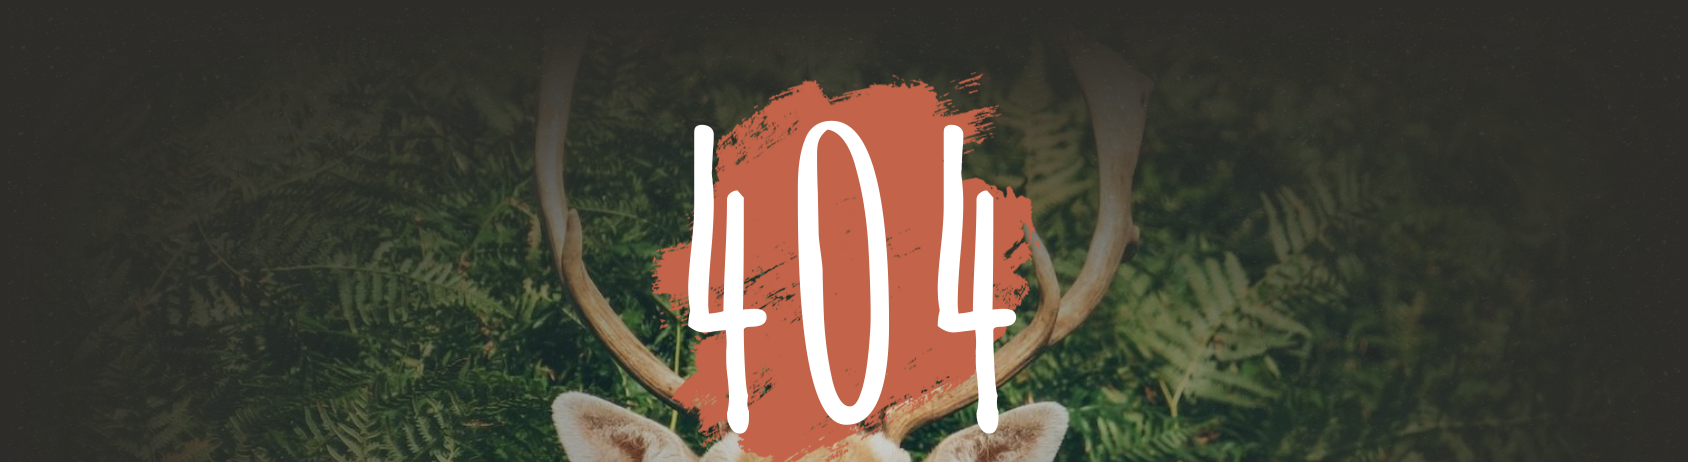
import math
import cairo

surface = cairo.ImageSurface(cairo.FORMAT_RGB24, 1688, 462)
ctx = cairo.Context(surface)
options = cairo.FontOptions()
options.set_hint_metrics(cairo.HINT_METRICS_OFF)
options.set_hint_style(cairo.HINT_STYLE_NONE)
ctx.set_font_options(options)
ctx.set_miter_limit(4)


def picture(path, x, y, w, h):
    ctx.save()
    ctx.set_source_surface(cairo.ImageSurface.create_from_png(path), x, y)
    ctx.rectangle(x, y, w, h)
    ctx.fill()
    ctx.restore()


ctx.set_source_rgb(0.176, 0.173, 0.157)
ctx.paint()
picture("img2.png", 18, 13, 1652, 449)
picture("img1.png", 8, 8, 1672, 454)
picture("img3.png", 644, 72, 400, 390)
ctx.select_font_face("Amatic SC", cairo.FONT_SLANT_NORMAL, cairo.FONT_WEIGHT_BOLD)
ctx.set_font_size(400)
ctx.set_source_rgb(1, 1, 1)
ctx.move_to(659, 426)
ctx.show_text("404")
surface.write_to_png("page.png")
